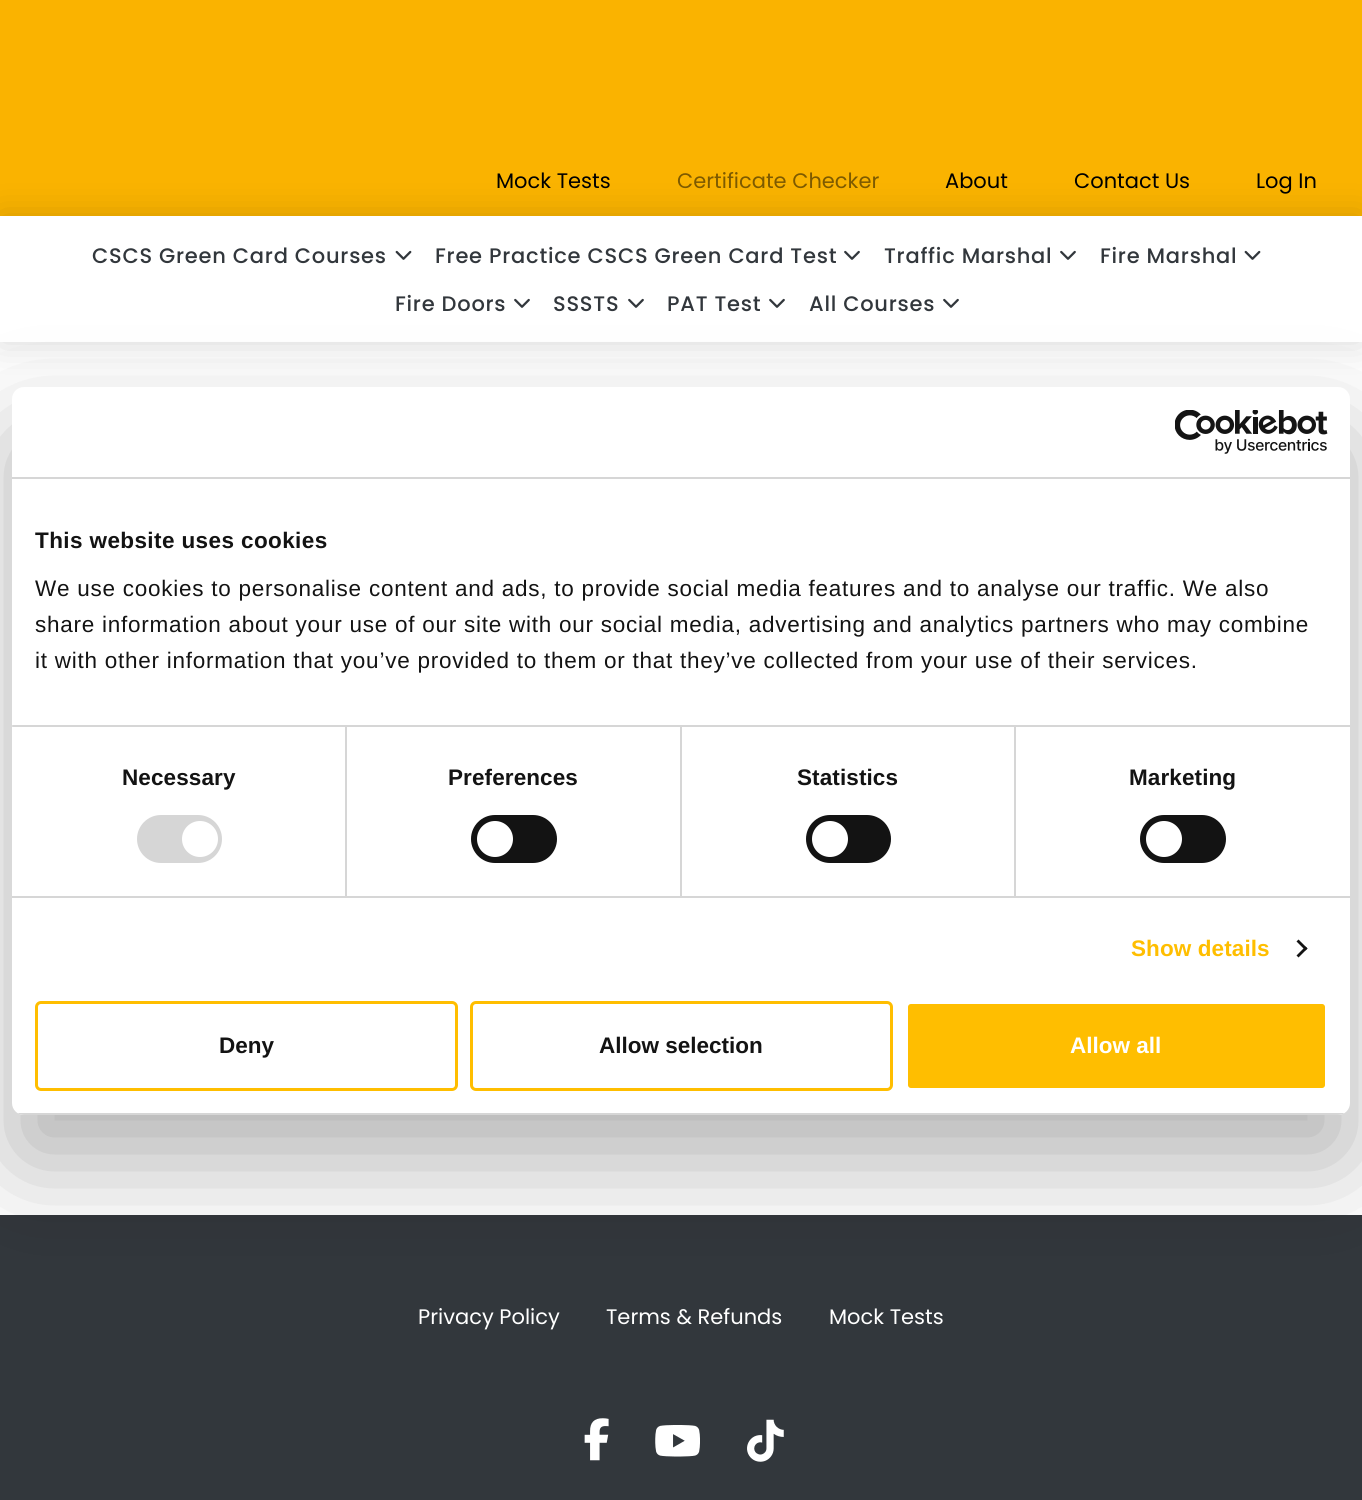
import math
import cairo

surface = cairo.ImageSurface(cairo.FORMAT_RGB24, 1362, 1500)
ctx = cairo.Context(surface)
options = cairo.FontOptions()
options.set_hint_metrics(cairo.HINT_METRICS_OFF)
options.set_hint_style(cairo.HINT_STYLE_NONE)
ctx.set_font_options(options)
ctx.set_miter_limit(4)


def spaced_text(x, y, s, letter, word):
    ctx.move_to(x, y)
    for ch in s:
        ctx.show_text(ch)
        ctx.rel_move_to(letter + word * (ch == ' '), 0)


def round_rect(x, y, w, h, r):
    ctx.new_sub_path()
    for i, (u, v) in enumerate([(x + w - r, y + h - r), (x + r, y + h - r), (x + r, y + r), (x + w - r, y + r)]):
        ctx.arc(u, v, r, i * math.pi / 2, (i + 1) * math.pi / 2)
    ctx.close_path()


def shadow(x, y, w, h, r, blur, alpha):
    ctx.push_group_with_content(cairo.CONTENT_ALPHA)
    ctx.set_operator(cairo.OPERATOR_SOURCE)
    for i in range(15, -16, -2):
        e = blur * i / 6
        if min(w, h) + 2 * e > 0:
            ctx.set_source_rgba(0, 0, 0, alpha * math.erfc((i - 1) / 8.5) / 2)
            round_rect(x - e, y - e, w + 2 * e, h + 2 * e, max(0, min(r + e + blur * .6, min(w, h) / 2 + e)))
            ctx.fill()
    ctx.mask(ctx.pop_group())


def picture(path, x, y, w, h):
    ctx.save()
    ctx.set_source_surface(cairo.ImageSurface.create_from_png(path), x, y)
    ctx.rectangle(x, y, w, h)
    ctx.fill()
    ctx.restore()


ctx.set_source_rgb(1, 1, 1)
ctx.paint()
ctx.set_source_rgb(0.98, 0.702, 0)
ctx.rectangle(0, 0, 1362, 216)
ctx.fill()
ctx.select_font_face("Poppins")
ctx.set_font_size(21)
ctx.set_source_rgb(0, 0, 0)
ctx.move_to(496, 188)
ctx.show_text("Mock Tests")
ctx.set_source_rgb(0.49, 0.353, 0)
ctx.move_to(677, 188)
ctx.show_text("Certificate Checker")
ctx.set_source_rgb(0, 0, 0)
ctx.move_to(945, 188)
ctx.show_text("About")
ctx.move_to(1074, 188)
ctx.show_text("Contact Us")
ctx.move_to(1256, 188)
ctx.show_text("Log In")
ctx.set_source_rgb(0, 0, 0)
shadow(0, 216, 1362, 126, 0, 18, 0.15)
ctx.set_source_rgb(1, 1, 1)
ctx.rectangle(0, 216, 1362, 126)
ctx.fill()
ctx.select_font_face("Poppins Medium")
ctx.set_source_rgb(0.196, 0.216, 0.235)
spaced_text(92, 263, "CSCS Green Card Courses", 0.75, 0)
picture("img1.png", 395, 250, 17, 10)
spaced_text(435, 263, "Free Practice CSCS Green Card Test", 0.75, 0)
picture("img2.png", 844, 250, 16, 10)
spaced_text(884, 263, "Traffic Marshal", 0.75, 0)
picture("img2.png", 1060, 250, 16, 10)
spaced_text(1100, 263, "Fire Marshal", 0.75, 0)
picture("img1.png", 1244, 250, 17, 10)
spaced_text(395, 311, "Fire Doors", 0.75, 0)
picture("img2.png", 514, 298, 16, 10)
spaced_text(553, 311, "SSSTS", 0.75, 0)
picture("img2.png", 628, 298, 16, 10)
spaced_text(667, 311, "PAT Test", 0.75, 0)
picture("img2.png", 769, 298, 16, 10)
spaced_text(809, 311, "All Courses", 0.75, 0)
picture("img2.png", 943, 298, 16, 10)
ctx.rectangle(0, 1215, 1362, 285)
ctx.fill()
ctx.select_font_face("Poppins")
ctx.set_source_rgb(1, 1, 1)
ctx.move_to(418, 1324)
ctx.show_text("Privacy Policy")
ctx.move_to(606, 1324)
ctx.show_text("Terms & Refunds")
ctx.move_to(829, 1324)
ctx.show_text("Mock Tests")
picture("img3.png", 584, 1418, 25, 43)
picture("img4.png", 655, 1425, 45, 32)
picture("img5.png", 747, 1419, 37, 43)
ctx.set_source_rgb(0, 0, 0)
shadow(12, 435, 1338, 728, 12, 51, 0.3)
ctx.set_source_rgb(1, 1, 1)
round_rect(12, 387, 1338, 728, 12)
ctx.fill()
ctx.set_source_rgb(0.839, 0.839, 0.839)
ctx.rectangle(12, 477, 1338, 2)
ctx.fill()
picture("img6.png", 1175, 410, 153, 44)
ctx.rectangle(345, 726, 2, 170)
ctx.fill()
ctx.rectangle(680, 726, 2, 170)
ctx.fill()
ctx.rectangle(1014, 726, 2, 170)
ctx.fill()
ctx.rectangle(12, 725, 1338, 2)
ctx.fill()
ctx.select_font_face("Liberation Sans", cairo.FONT_SLANT_NORMAL, cairo.FONT_WEIGHT_BOLD)
ctx.set_font_size(22.5)
ctx.set_source_rgb(0.078, 0.078, 0.078)
spaced_text(35, 548, "This website uses cookies", 0.4, 0)
ctx.select_font_face("Liberation Sans")
spaced_text(35, 596, "We use cookies to personalise content and ads, to provide social media features and to analyse our traffic. We also", 0.75, 0)
spaced_text(35, 632, "share information about your use of our site with our social media, advertising and analytics partners who may combine", 0.75, 0)
spaced_text(35, 668, "it with other information that you’ve provided to them or that they’ve collected from your use of their services.", 0.75, 0)
ctx.set_source_rgb(0.839, 0.839, 0.839)
ctx.rectangle(12, 896, 1338, 2)
ctx.fill()
ctx.set_source_rgb(0.867, 0.867, 0.867)
ctx.rectangle(12, 725, 1, 2)
ctx.fill()
ctx.select_font_face("Liberation Sans", cairo.FONT_SLANT_NORMAL, cairo.FONT_WEIGHT_BOLD)
ctx.set_source_rgb(0.078, 0.078, 0.078)
spaced_text(122, 785, "Necessary", 0.1, 0)
ctx.set_source_rgb(0.839, 0.839, 0.839)
round_rect(137, 815, 85, 48, 24)
ctx.fill()
ctx.set_source_rgb(1, 1, 1)
ctx.arc(200, 839, 18, 0, 2 * math.pi)
ctx.fill()
ctx.set_source_rgb(0.078, 0.078, 0.078)
spaced_text(448, 785, "Preferences", 0.1, 0)
round_rect(471, 815, 86, 48, 24)
ctx.fill()
ctx.set_source_rgb(1, 1, 1)
ctx.arc(495, 839, 18, 0, 2 * math.pi)
ctx.fill()
ctx.set_source_rgb(0.078, 0.078, 0.078)
spaced_text(797, 785, "Statistics", 0.1, 0)
round_rect(806, 815, 85, 48, 24)
ctx.fill()
ctx.set_source_rgb(1, 1, 1)
ctx.arc(830, 839, 18, 0, 2 * math.pi)
ctx.fill()
ctx.set_source_rgb(0.078, 0.078, 0.078)
spaced_text(1129, 785, "Marketing", 0.1, 0)
round_rect(1140, 815, 86, 48, 24)
ctx.fill()
ctx.set_source_rgb(1, 1, 1)
ctx.arc(1164, 839, 18, 0, 2 * math.pi)
ctx.fill()
ctx.set_source_rgb(1, 0.745, 0)
spaced_text(1131, 956, "Show details", 0.1, 0)
ctx.set_source_rgb(0.078, 0.078, 0.078)
ctx.new_path()
ctx.move_to(1298.5, 939.5)
ctx.line_to(1307.5, 948.5)
ctx.line_to(1305.5, 950.5)
ctx.line_to(1296.5, 941.5)
ctx.close_path()
ctx.fill()
ctx.new_path()
ctx.move_to(1305.5, 946.5)
ctx.line_to(1307.5, 948.5)
ctx.line_to(1298.5, 957.5)
ctx.line_to(1296.5, 955.5)
ctx.close_path()
ctx.fill()
ctx.save()
round_rect(12, 387, 1338, 728, 12)
ctx.clip()
ctx.set_source_rgb(0.839, 0.839, 0.839)
ctx.rectangle(12, 1113, 1338, 2)
ctx.fill()
ctx.restore()
round_rect(36.5, 1002.5, 420, 87, 4.5)
ctx.set_source_rgb(1, 0.745, 0)
ctx.set_line_width(3)
ctx.stroke()
ctx.set_source_rgb(0.078, 0.078, 0.078)
ctx.move_to(219, 1053)
ctx.show_text("Deny")
round_rect(471.5, 1002.5, 420, 87, 4.5)
ctx.set_source_rgb(1, 0.745, 0)
ctx.stroke()
ctx.set_source_rgb(0.078, 0.078, 0.078)
ctx.move_to(599, 1053)
ctx.show_text("Allow selection")
ctx.set_source_rgb(1, 0.745, 0)
round_rect(906.5, 1002.5, 420, 87, 4.5)
ctx.fill_preserve()
ctx.set_source_rgb(1, 1, 1)
ctx.stroke()
ctx.move_to(1070, 1053)
ctx.show_text("Allow all")
surface.write_to_png("page.png")
